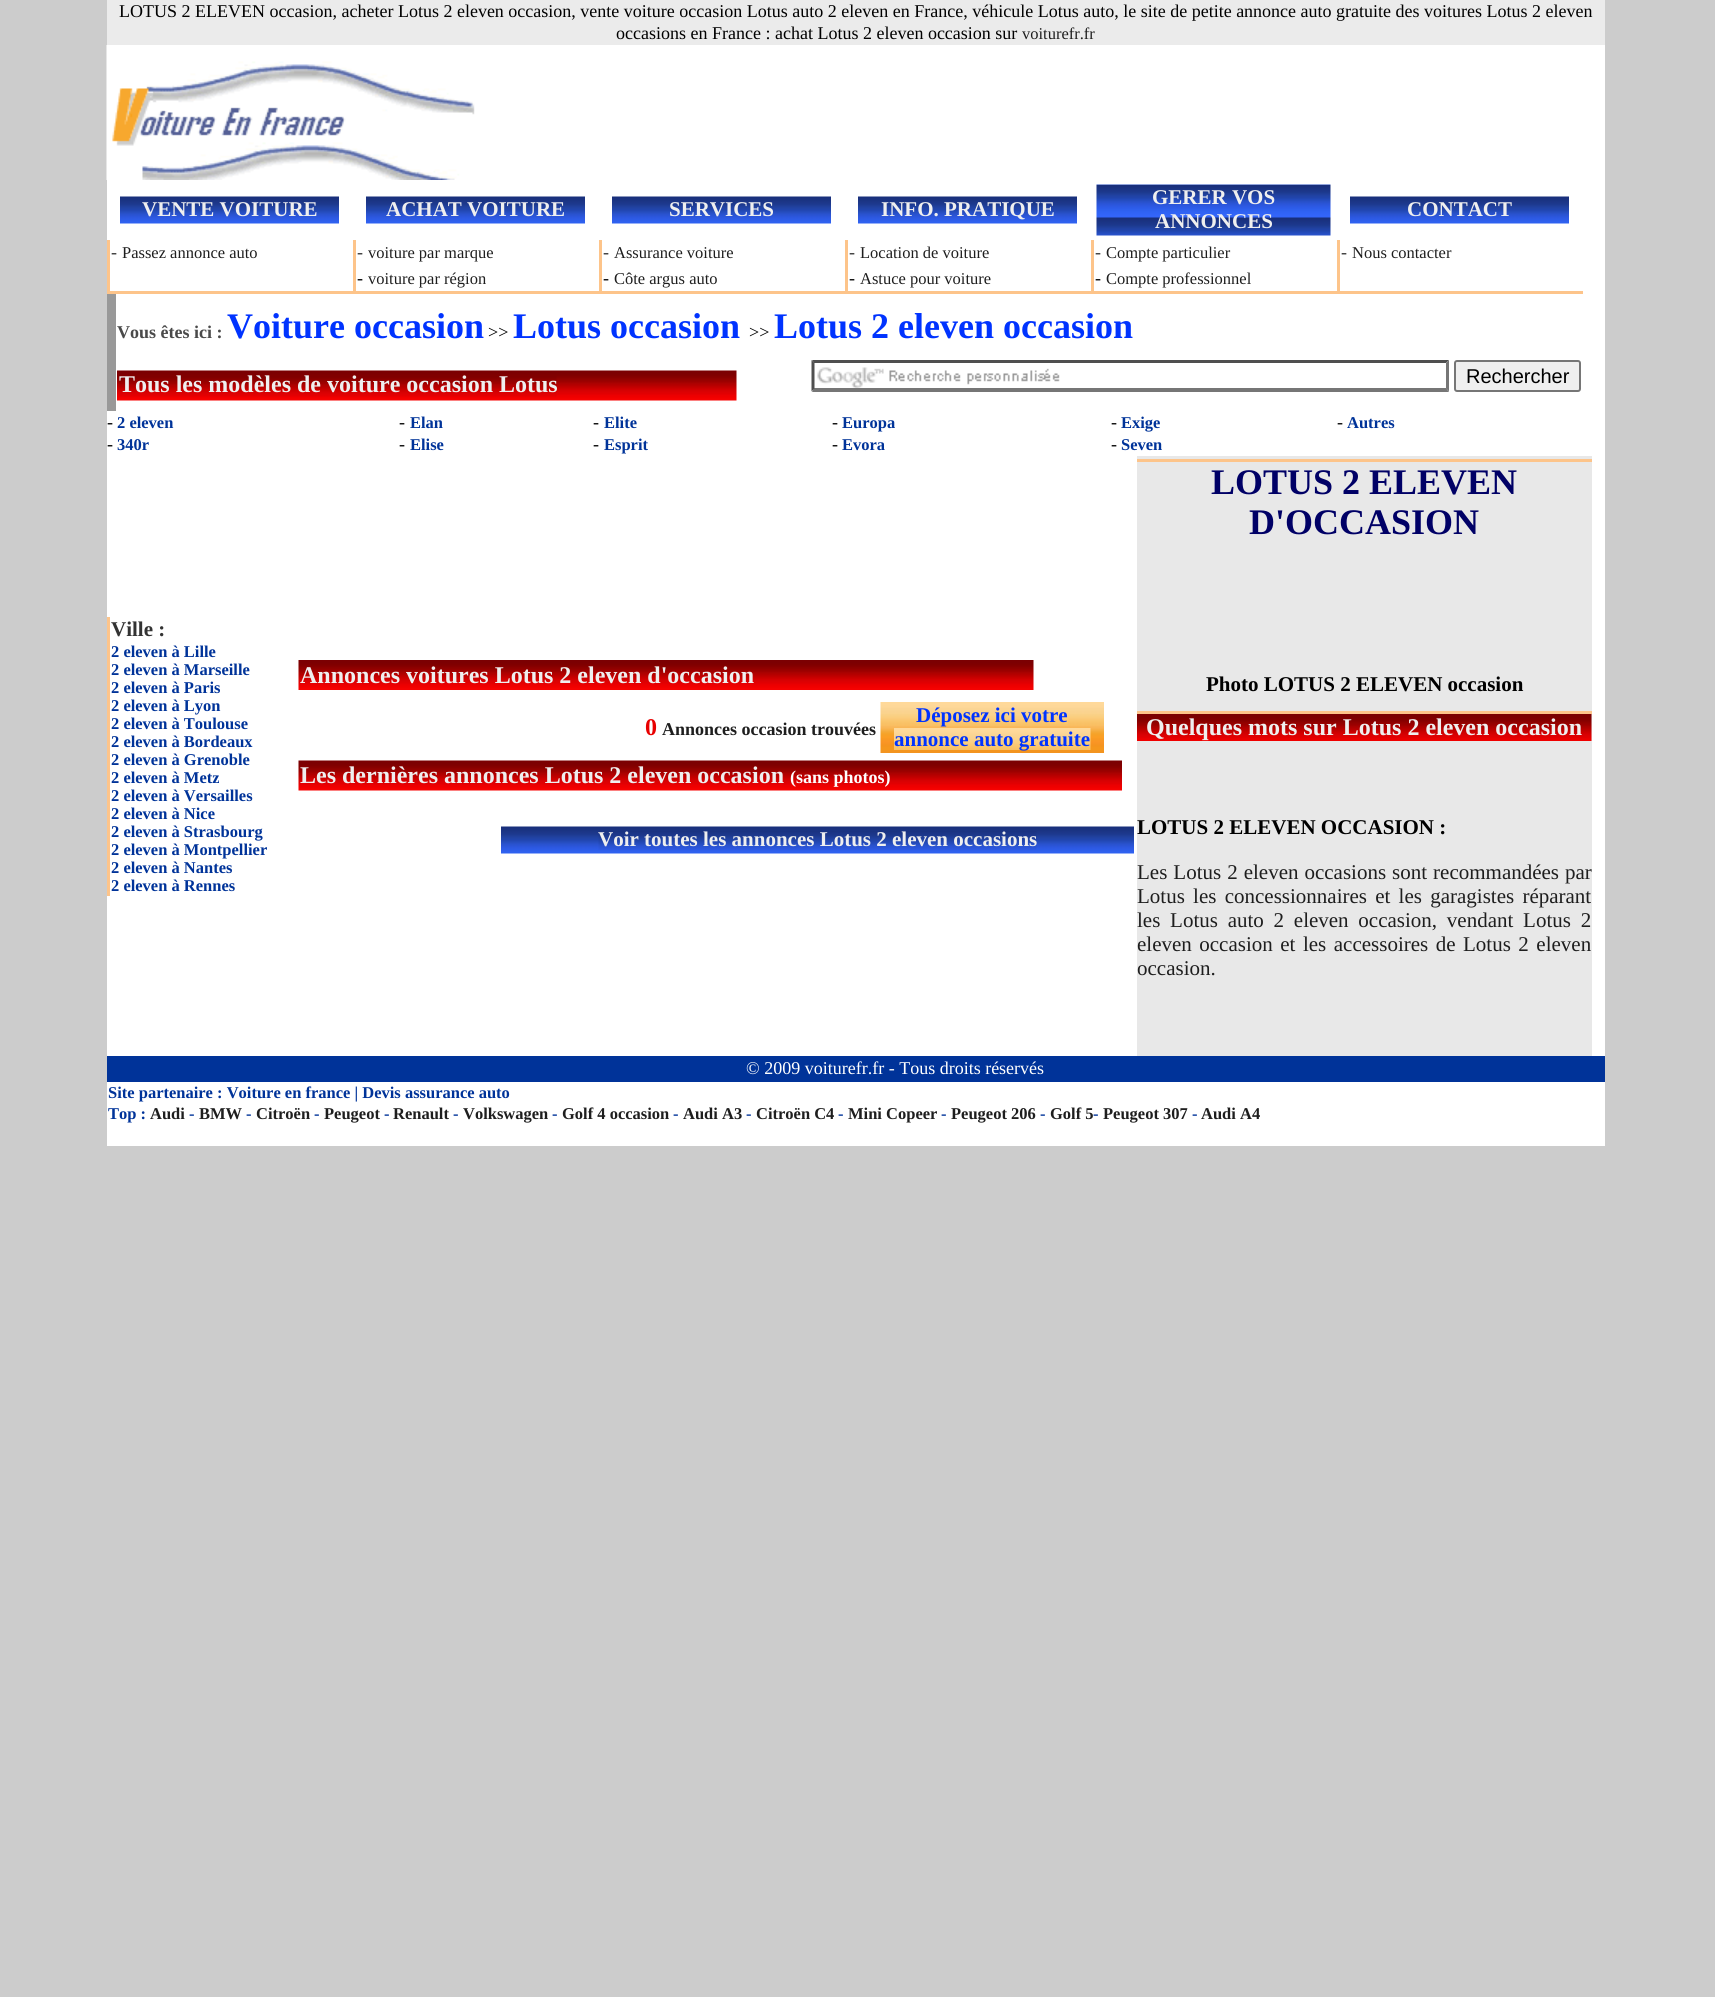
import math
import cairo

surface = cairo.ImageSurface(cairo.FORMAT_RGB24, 1715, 1997)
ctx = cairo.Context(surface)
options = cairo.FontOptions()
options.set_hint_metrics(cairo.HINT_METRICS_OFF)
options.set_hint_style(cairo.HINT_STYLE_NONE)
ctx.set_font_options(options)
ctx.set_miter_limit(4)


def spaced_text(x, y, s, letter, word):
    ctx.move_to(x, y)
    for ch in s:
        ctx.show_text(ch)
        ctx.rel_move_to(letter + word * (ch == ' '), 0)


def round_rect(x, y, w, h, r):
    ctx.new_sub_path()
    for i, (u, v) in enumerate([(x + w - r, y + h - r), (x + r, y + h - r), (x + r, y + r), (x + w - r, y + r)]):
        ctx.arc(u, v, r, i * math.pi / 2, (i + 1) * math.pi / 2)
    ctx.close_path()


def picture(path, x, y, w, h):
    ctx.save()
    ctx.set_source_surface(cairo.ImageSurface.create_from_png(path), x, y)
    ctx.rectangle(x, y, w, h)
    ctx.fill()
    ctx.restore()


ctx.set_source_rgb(0.8, 0.8, 0.8)
ctx.paint()
ctx.set_source_rgb(1, 1, 1)
ctx.rectangle(107, 45, 1498, 1101)
ctx.fill()
ctx.set_source_rgb(0.918, 0.918, 0.918)
ctx.rectangle(107, 0, 1498, 45)
ctx.fill()
ctx.select_font_face("Liberation Serif")
ctx.set_font_size(18)
ctx.set_source_rgb(0, 0, 0)
ctx.move_to(119, 17)
ctx.show_text("LOTUS 2 ELEVEN occasion, acheter Lotus 2 eleven occasion, vente voiture occasion Lotus auto 2 eleven en France, véhicule Lotus auto, le site de petite annonce auto gratuite des voitures Lotus 2 eleven")
ctx.move_to(616, 39)
ctx.show_text("occasions en France : achat Lotus 2 eleven occasion sur")
ctx.set_font_size(16.5)
ctx.set_source_rgb(0.118, 0.118, 0.118)
ctx.move_to(1022, 39)
ctx.show_text("voiturefr.fr")
picture("img1.png", 106, 45, 369, 135)
picture("img2.png", 120, 196, 219, 28)
ctx.select_font_face("Liberation Serif", cairo.FONT_SLANT_NORMAL, cairo.FONT_WEIGHT_BOLD)
ctx.set_font_size(21)
ctx.set_source_rgb(0.937, 0.937, 0.937)
ctx.move_to(142, 216)
ctx.show_text("VENTE VOITURE")
picture("img2.png", 366, 196, 219, 28)
ctx.move_to(386, 216)
ctx.show_text("ACHAT VOITURE")
picture("img3.png", 612, 196, 219, 28)
ctx.move_to(669, 216)
ctx.show_text("SERVICES")
picture("img2.png", 858, 196, 219, 28)
ctx.move_to(881, 216)
ctx.show_text("INFO. PRATIQUE")
picture("img4.png", 1096, 184, 235, 52)
ctx.move_to(1152, 204)
ctx.show_text("GERER VOS")
ctx.move_to(1155, 228)
ctx.show_text("ANNONCES")
picture("img3.png", 1350, 196, 219, 28)
ctx.move_to(1407, 216)
ctx.show_text("CONTACT")
ctx.set_source_rgb(0.992, 0.769, 0.541)
ctx.rectangle(107, 240, 3, 26)
ctx.fill()
ctx.select_font_face("Liberation Serif")
ctx.set_font_size(18)
ctx.set_source_rgb(0.2, 0.2, 0.2)
ctx.move_to(111, 258)
ctx.show_text("-")
ctx.set_font_size(16.5)
ctx.set_source_rgb(0.118, 0.118, 0.118)
ctx.move_to(122, 258)
ctx.show_text("Passez annonce auto")
ctx.set_source_rgb(0.992, 0.769, 0.541)
ctx.rectangle(353, 240, 3, 26)
ctx.fill()
ctx.set_font_size(18)
ctx.set_source_rgb(0.2, 0.2, 0.2)
ctx.move_to(357, 258)
ctx.show_text("-")
ctx.set_font_size(16.5)
ctx.set_source_rgb(0.118, 0.118, 0.118)
ctx.move_to(368, 258)
ctx.show_text("voiture par marque")
ctx.set_source_rgb(0.992, 0.769, 0.541)
ctx.rectangle(599, 240, 3, 26)
ctx.fill()
ctx.set_font_size(18)
ctx.set_source_rgb(0.2, 0.2, 0.2)
ctx.move_to(603, 258)
ctx.show_text("-")
ctx.set_font_size(16.5)
ctx.set_source_rgb(0.118, 0.118, 0.118)
ctx.move_to(614, 258)
ctx.show_text("Assurance voiture")
ctx.set_source_rgb(0.992, 0.769, 0.541)
ctx.rectangle(845, 240, 3, 26)
ctx.fill()
ctx.set_font_size(18)
ctx.set_source_rgb(0.2, 0.2, 0.2)
ctx.move_to(849, 258)
ctx.show_text("-")
ctx.set_font_size(16.5)
ctx.set_source_rgb(0.118, 0.118, 0.118)
ctx.move_to(860, 258)
ctx.show_text("Location de voiture")
ctx.set_source_rgb(0.992, 0.769, 0.541)
ctx.rectangle(1091, 240, 3, 26)
ctx.fill()
ctx.set_font_size(18)
ctx.set_source_rgb(0.2, 0.2, 0.2)
ctx.move_to(1095, 258)
ctx.show_text("-")
ctx.set_font_size(16.5)
ctx.set_source_rgb(0.118, 0.118, 0.118)
ctx.move_to(1106, 258)
ctx.show_text("Compte particulier")
ctx.set_source_rgb(0.992, 0.769, 0.541)
ctx.rectangle(1337, 240, 3, 26)
ctx.fill()
ctx.set_font_size(18)
ctx.set_source_rgb(0.2, 0.2, 0.2)
ctx.move_to(1341, 258)
ctx.show_text("-")
ctx.set_font_size(16.5)
ctx.set_source_rgb(0.118, 0.118, 0.118)
ctx.move_to(1352, 258)
ctx.show_text("Nous contacter")
ctx.set_source_rgb(0.992, 0.769, 0.541)
ctx.rectangle(107, 291, 1476, 3)
ctx.fill()
ctx.rectangle(107, 266, 3, 28)
ctx.fill()
ctx.rectangle(353, 266, 3, 28)
ctx.fill()
ctx.set_font_size(18)
ctx.set_source_rgb(0, 0, 0)
ctx.move_to(357, 284)
ctx.show_text("-")
ctx.set_font_size(16.5)
ctx.set_source_rgb(0.118, 0.118, 0.118)
ctx.move_to(368, 284)
ctx.show_text("voiture par région")
ctx.set_source_rgb(0.992, 0.769, 0.541)
ctx.rectangle(599, 266, 3, 28)
ctx.fill()
ctx.set_font_size(18)
ctx.set_source_rgb(0, 0, 0)
ctx.move_to(603, 284)
ctx.show_text("-")
ctx.set_font_size(16.5)
ctx.set_source_rgb(0.118, 0.118, 0.118)
ctx.move_to(614, 284)
ctx.show_text("Côte argus auto")
ctx.set_source_rgb(0.992, 0.769, 0.541)
ctx.rectangle(845, 266, 3, 28)
ctx.fill()
ctx.set_font_size(18)
ctx.set_source_rgb(0, 0, 0)
ctx.move_to(849, 284)
ctx.show_text("-")
ctx.set_font_size(16.5)
ctx.set_source_rgb(0.118, 0.118, 0.118)
ctx.move_to(860, 284)
ctx.show_text("Astuce pour voiture")
ctx.set_source_rgb(0.992, 0.769, 0.541)
ctx.rectangle(1091, 266, 3, 28)
ctx.fill()
ctx.set_font_size(18)
ctx.set_source_rgb(0, 0, 0)
ctx.move_to(1095, 284)
ctx.show_text("-")
ctx.set_font_size(16.5)
ctx.set_source_rgb(0.118, 0.118, 0.118)
ctx.move_to(1106, 284)
ctx.show_text("Compte professionnel")
ctx.set_source_rgb(0.992, 0.769, 0.541)
ctx.rectangle(1337, 266, 3, 28)
ctx.fill()
ctx.set_source_rgb(0.6, 0.6, 0.6)
ctx.rectangle(107, 294, 9, 117)
ctx.fill()
ctx.select_font_face("Liberation Serif", cairo.FONT_SLANT_NORMAL, cairo.FONT_WEIGHT_BOLD)
ctx.set_font_size(18)
ctx.set_source_rgb(0.29, 0.29, 0.29)
ctx.move_to(117, 338)
ctx.show_text("Vous êtes ici :")
ctx.set_font_size(36)
ctx.set_source_rgb(0, 0.2, 1)
ctx.move_to(227, 338)
ctx.show_text("Voiture occasion")
ctx.select_font_face("Liberation Serif")
ctx.set_font_size(18)
ctx.set_source_rgb(0, 0, 0)
ctx.move_to(488, 338)
ctx.show_text(">>")
ctx.select_font_face("Liberation Serif", cairo.FONT_SLANT_NORMAL, cairo.FONT_WEIGHT_BOLD)
ctx.set_font_size(36)
ctx.set_source_rgb(0, 0.2, 1)
ctx.move_to(513, 338)
ctx.show_text("Lotus occasion")
ctx.select_font_face("Liberation Serif")
ctx.set_font_size(18)
ctx.set_source_rgb(0, 0, 0)
ctx.move_to(749, 338)
ctx.show_text(">>")
ctx.select_font_face("Liberation Serif", cairo.FONT_SLANT_NORMAL, cairo.FONT_WEIGHT_BOLD)
ctx.set_font_size(36)
ctx.set_source_rgb(0, 0.2, 1)
ctx.move_to(774, 338)
ctx.show_text("Lotus 2 eleven occasion")
picture("img5.png", 117, 370, 620, 31)
picture("img6.png", 118, 376, 439, 21)
ctx.set_font_size(24)
ctx.set_source_rgb(0.937, 0.937, 0.937)
ctx.move_to(119, 392)
ctx.show_text("Tous les modèles de voiture occasion Lotus")
picture("img7.png", 817, 367, 243, 21)
ctx.set_source_rgb(0.31, 0.31, 0.31)
ctx.new_path()
ctx.move_to(812, 360)
ctx.line_to(1449, 360)
ctx.line_to(1446, 363)
ctx.line_to(814, 363)
ctx.close_path()
ctx.fill()
ctx.set_source_rgb(0.463, 0.463, 0.463)
ctx.new_path()
ctx.move_to(1449, 360)
ctx.line_to(1449, 391.5)
ctx.line_to(1446, 388.5)
ctx.line_to(1446, 363)
ctx.close_path()
ctx.fill()
ctx.new_path()
ctx.move_to(1449, 392)
ctx.line_to(812, 392)
ctx.line_to(814, 388)
ctx.line_to(1446, 388)
ctx.close_path()
ctx.fill()
ctx.set_source_rgb(0.31, 0.31, 0.31)
ctx.new_path()
ctx.move_to(811.5, 391.5)
ctx.line_to(811.5, 360)
ctx.line_to(814.5, 363)
ctx.line_to(814.5, 388.5)
ctx.close_path()
ctx.fill()
ctx.set_source_rgb(0.937, 0.937, 0.937)
round_rect(1455, 361, 125, 30, 2)
ctx.fill_preserve()
ctx.set_source_rgb(0.463, 0.463, 0.463)
ctx.stroke()
ctx.select_font_face("Liberation Sans")
ctx.set_font_size(20)
ctx.set_source_rgb(0, 0, 0)
ctx.move_to(1466, 383)
ctx.show_text("Rechercher")
ctx.select_font_face("Liberation Serif")
ctx.set_font_size(18)
ctx.move_to(107, 428)
ctx.show_text("-")
ctx.select_font_face("Liberation Serif", cairo.FONT_SLANT_NORMAL, cairo.FONT_WEIGHT_BOLD)
ctx.set_font_size(16.5)
ctx.set_source_rgb(0, 0.2, 0.6)
ctx.move_to(117, 428)
ctx.show_text("2 eleven")
ctx.select_font_face("Liberation Serif")
ctx.set_font_size(18)
ctx.set_source_rgb(0, 0, 0)
ctx.move_to(107, 450)
ctx.show_text("-")
ctx.select_font_face("Liberation Serif", cairo.FONT_SLANT_NORMAL, cairo.FONT_WEIGHT_BOLD)
ctx.set_font_size(16.5)
ctx.set_source_rgb(0, 0.2, 0.6)
ctx.move_to(117, 450)
ctx.show_text("340r")
ctx.select_font_face("Liberation Serif")
ctx.set_font_size(18)
ctx.set_source_rgb(0, 0, 0)
ctx.move_to(399, 428)
ctx.show_text("-")
ctx.select_font_face("Liberation Serif", cairo.FONT_SLANT_NORMAL, cairo.FONT_WEIGHT_BOLD)
ctx.set_font_size(16.5)
ctx.set_source_rgb(0, 0.2, 0.6)
ctx.move_to(410, 428)
ctx.show_text("Elan")
ctx.select_font_face("Liberation Serif")
ctx.set_font_size(18)
ctx.set_source_rgb(0, 0, 0)
ctx.move_to(399, 450)
ctx.show_text("-")
ctx.select_font_face("Liberation Serif", cairo.FONT_SLANT_NORMAL, cairo.FONT_WEIGHT_BOLD)
ctx.set_font_size(16.5)
ctx.set_source_rgb(0, 0.2, 0.6)
ctx.move_to(410, 450)
ctx.show_text("Elise")
ctx.select_font_face("Liberation Serif")
ctx.set_font_size(18)
ctx.set_source_rgb(0, 0, 0)
ctx.move_to(593, 428)
ctx.show_text("-")
ctx.select_font_face("Liberation Serif", cairo.FONT_SLANT_NORMAL, cairo.FONT_WEIGHT_BOLD)
ctx.set_font_size(16.5)
ctx.set_source_rgb(0, 0.2, 0.6)
ctx.move_to(604, 428)
ctx.show_text("Elite")
ctx.select_font_face("Liberation Serif")
ctx.set_font_size(18)
ctx.set_source_rgb(0, 0, 0)
ctx.move_to(593, 450)
ctx.show_text("-")
ctx.select_font_face("Liberation Serif", cairo.FONT_SLANT_NORMAL, cairo.FONT_WEIGHT_BOLD)
ctx.set_font_size(16.5)
ctx.set_source_rgb(0, 0.2, 0.6)
ctx.move_to(604, 450)
ctx.show_text("Esprit")
ctx.select_font_face("Liberation Serif")
ctx.set_font_size(18)
ctx.set_source_rgb(0, 0, 0)
ctx.move_to(832, 428)
ctx.show_text("-")
ctx.select_font_face("Liberation Serif", cairo.FONT_SLANT_NORMAL, cairo.FONT_WEIGHT_BOLD)
ctx.set_font_size(16.5)
ctx.set_source_rgb(0, 0.2, 0.6)
ctx.move_to(842, 428)
ctx.show_text("Europa")
ctx.select_font_face("Liberation Serif")
ctx.set_font_size(18)
ctx.set_source_rgb(0, 0, 0)
ctx.move_to(832, 450)
ctx.show_text("-")
ctx.select_font_face("Liberation Serif", cairo.FONT_SLANT_NORMAL, cairo.FONT_WEIGHT_BOLD)
ctx.set_font_size(16.5)
ctx.set_source_rgb(0, 0.2, 0.6)
ctx.move_to(842, 450)
ctx.show_text("Evora")
ctx.select_font_face("Liberation Serif")
ctx.set_font_size(18)
ctx.set_source_rgb(0, 0, 0)
ctx.move_to(1111, 428)
ctx.show_text("-")
ctx.select_font_face("Liberation Serif", cairo.FONT_SLANT_NORMAL, cairo.FONT_WEIGHT_BOLD)
ctx.set_font_size(16.5)
ctx.set_source_rgb(0, 0.2, 0.6)
ctx.move_to(1121, 428)
ctx.show_text("Exige")
ctx.select_font_face("Liberation Serif")
ctx.set_font_size(18)
ctx.set_source_rgb(0, 0, 0)
ctx.move_to(1111, 450)
ctx.show_text("-")
ctx.select_font_face("Liberation Serif", cairo.FONT_SLANT_NORMAL, cairo.FONT_WEIGHT_BOLD)
ctx.set_font_size(16.5)
ctx.set_source_rgb(0, 0.2, 0.6)
ctx.move_to(1121, 450)
ctx.show_text("Seven")
ctx.select_font_face("Liberation Serif")
ctx.set_font_size(18)
ctx.set_source_rgb(0, 0, 0)
ctx.move_to(1337, 428)
ctx.show_text("-")
ctx.select_font_face("Liberation Serif", cairo.FONT_SLANT_NORMAL, cairo.FONT_WEIGHT_BOLD)
ctx.set_font_size(16.5)
ctx.set_source_rgb(0, 0.2, 0.6)
ctx.move_to(1347, 428)
ctx.show_text("Autres")
ctx.set_source_rgb(0.992, 0.769, 0.541)
ctx.rectangle(107, 617, 3, 279)
ctx.fill()
ctx.set_font_size(21)
ctx.set_source_rgb(0.2, 0.2, 0.2)
ctx.move_to(111, 636)
ctx.show_text("Ville :")
ctx.set_font_size(16.5)
ctx.set_source_rgb(0, 0.2, 0.6)
ctx.move_to(111, 657)
ctx.show_text("2 eleven à Lille")
ctx.move_to(111, 675)
ctx.show_text("2 eleven à Marseille")
ctx.move_to(111, 693)
ctx.show_text("2 eleven à Paris")
ctx.move_to(111, 711)
ctx.show_text("2 eleven à Lyon")
ctx.move_to(111, 729)
ctx.show_text("2 eleven à Toulouse")
ctx.move_to(111, 747)
ctx.show_text("2 eleven à Bordeaux")
ctx.move_to(111, 765)
ctx.show_text("2 eleven à Grenoble")
ctx.move_to(111, 783)
ctx.show_text("2 eleven à Metz")
ctx.move_to(111, 801)
ctx.show_text("2 eleven à Versailles")
ctx.move_to(111, 819)
ctx.show_text("2 eleven à Nice")
ctx.move_to(111, 837)
ctx.show_text("2 eleven à Strasbourg")
ctx.move_to(111, 855)
ctx.show_text("2 eleven à Montpellier")
ctx.move_to(111, 873)
ctx.show_text("2 eleven à Nantes")
ctx.move_to(111, 891)
ctx.show_text("2 eleven à Rennes")
picture("img8.png", 298, 660, 736, 30)
ctx.set_font_size(24)
ctx.set_source_rgb(0.937, 0.937, 0.937)
ctx.move_to(300, 683)
ctx.show_text("Annonces voitures Lotus 2 eleven d'occasion")
ctx.set_source_rgb(0.91, 0, 0)
ctx.move_to(645, 735)
ctx.show_text("0")
ctx.set_font_size(18)
ctx.set_source_rgb(0.118, 0.118, 0.118)
ctx.move_to(662, 735)
ctx.show_text("Annonces occasion trouvées")
picture("img9.png", 880, 702, 224, 51)
picture("img10.png", 894, 714, 197, 36)
ctx.set_font_size(21)
ctx.set_source_rgb(0, 0.2, 1)
ctx.move_to(916, 722)
ctx.show_text("Déposez ici votre")
ctx.move_to(894, 746)
ctx.show_text("annonce auto gratuite")
picture("img11.png", 298, 760, 824, 31)
ctx.set_font_size(24)
ctx.set_source_rgb(0.937, 0.937, 0.937)
ctx.move_to(300, 783)
ctx.show_text("Les dernières annonces Lotus 2 eleven occasion")
ctx.set_font_size(18)
ctx.set_source_rgb(1, 1, 1)
ctx.move_to(790, 783)
ctx.show_text("(sans photos)")
picture("img12.png", 501, 826, 633, 28)
picture("img13.png", 598, 831, 439, 19)
ctx.set_font_size(21)
ctx.set_source_rgb(0.937, 0.937, 0.937)
ctx.move_to(598, 846)
ctx.show_text("Voir toutes les annonces Lotus 2 eleven occasions")
ctx.set_source_rgb(0.91, 0.91, 0.91)
ctx.rectangle(1137, 456, 455, 600)
ctx.fill()
ctx.set_source_rgb(0.992, 0.769, 0.541)
ctx.rectangle(1137, 459, 455, 3)
ctx.fill()
ctx.set_font_size(36)
ctx.set_source_rgb(0, 0, 0.4)
ctx.move_to(1211, 494)
ctx.show_text("LOTUS 2 ELEVEN")
ctx.move_to(1249, 534)
ctx.show_text("D'OCCASION")
ctx.set_font_size(21)
ctx.set_source_rgb(0, 0, 0)
ctx.move_to(1206, 691)
ctx.show_text("Photo LOTUS 2 ELEVEN occasion")
picture("img14.png", 1137, 714, 455, 27)
ctx.set_source_rgb(0.992, 0.769, 0.541)
ctx.rectangle(1137, 711, 455, 3)
ctx.fill()
ctx.set_font_size(24)
ctx.set_source_rgb(0.937, 0.937, 0.937)
ctx.move_to(1146, 735)
ctx.show_text("Quelques mots sur Lotus 2 eleven occasion")
ctx.set_font_size(21)
ctx.set_source_rgb(0, 0, 0)
ctx.move_to(1137, 834)
ctx.show_text("LOTUS 2 ELEVEN OCCASION :")
ctx.select_font_face("Liberation Serif")
ctx.set_source_rgb(0.118, 0.118, 0.118)
spaced_text(1137, 879, "Les Lotus 2 eleven occasions sont recommandées par", 0, 0.75)
spaced_text(1137, 903, "Lotus les concessionnaires et les garagistes réparant", 0, 3)
spaced_text(1137, 927, "les Lotus auto 2 eleven occasion, vendant Lotus 2", 0, 4.5)
spaced_text(1137, 951, "eleven occasion et les accessoires de Lotus 2 eleven", 0, 2.25)
ctx.move_to(1137, 975)
ctx.show_text("occasion.")
ctx.set_source_rgb(0, 0.2, 0.6)
ctx.rectangle(107, 1056, 1498, 26)
ctx.fill()
ctx.set_font_size(18)
ctx.set_source_rgb(1, 1, 1)
ctx.move_to(746, 1074)
ctx.show_text("© 2009 voiturefr.fr - Tous droits réservés")
ctx.select_font_face("Liberation Serif", cairo.FONT_SLANT_NORMAL, cairo.FONT_WEIGHT_BOLD)
ctx.set_font_size(16.5)
ctx.set_source_rgb(0, 0.2, 0.6)
ctx.move_to(108, 1098)
ctx.show_text("Site partenaire : Voiture en france | Devis assurance auto")
ctx.move_to(108, 1119)
ctx.show_text("Top :")
ctx.set_source_rgb(0.118, 0.118, 0.118)
ctx.move_to(150, 1119)
ctx.show_text("Audi")
ctx.set_source_rgb(0, 0.2, 0.6)
ctx.move_to(189, 1119)
ctx.show_text("-")
ctx.set_source_rgb(0.118, 0.118, 0.118)
ctx.move_to(199, 1119)
ctx.show_text("BMW")
ctx.set_source_rgb(0, 0.2, 0.6)
ctx.move_to(246, 1119)
ctx.show_text("-")
ctx.set_source_rgb(0.118, 0.118, 0.118)
ctx.move_to(256, 1119)
ctx.show_text("Citroën")
ctx.set_source_rgb(0, 0.2, 0.6)
ctx.move_to(314, 1119)
ctx.show_text("-")
ctx.set_source_rgb(0.118, 0.118, 0.118)
ctx.move_to(324, 1119)
ctx.show_text("Peugeot")
ctx.set_source_rgb(0, 0.2, 0.6)
ctx.move_to(384, 1119)
ctx.show_text("-")
ctx.set_source_rgb(0.118, 0.118, 0.118)
ctx.move_to(393, 1119)
ctx.show_text("Renault")
ctx.set_source_rgb(0, 0.2, 0.6)
ctx.move_to(453, 1119)
ctx.show_text("-")
ctx.set_source_rgb(0.118, 0.118, 0.118)
ctx.move_to(463, 1119)
ctx.show_text("Volkswagen")
ctx.set_source_rgb(0, 0.2, 0.6)
ctx.move_to(552, 1119)
ctx.show_text("-")
ctx.set_source_rgb(0.118, 0.118, 0.118)
ctx.move_to(562, 1119)
ctx.show_text("Golf 4 occasion")
ctx.set_source_rgb(0, 0.2, 0.6)
ctx.move_to(673, 1119)
ctx.show_text("-")
ctx.set_source_rgb(0.118, 0.118, 0.118)
ctx.move_to(683, 1119)
ctx.show_text("Audi A3")
ctx.set_source_rgb(0, 0.2, 0.6)
ctx.move_to(746, 1119)
ctx.show_text("-")
ctx.set_source_rgb(0.118, 0.118, 0.118)
ctx.move_to(756, 1119)
ctx.show_text("Citroën C4")
ctx.set_source_rgb(0, 0.2, 0.6)
ctx.move_to(838, 1119)
ctx.show_text("-")
ctx.set_source_rgb(0.118, 0.118, 0.118)
ctx.move_to(848, 1119)
ctx.show_text("Mini Copeer")
ctx.set_source_rgb(0, 0.2, 0.6)
ctx.move_to(941, 1119)
ctx.show_text("-")
ctx.set_source_rgb(0.118, 0.118, 0.118)
ctx.move_to(951, 1119)
ctx.show_text("Peugeot 206")
ctx.set_source_rgb(0, 0.2, 0.6)
ctx.move_to(1040, 1119)
ctx.show_text("-")
ctx.set_source_rgb(0.118, 0.118, 0.118)
ctx.move_to(1050, 1119)
ctx.show_text("Golf 5")
ctx.set_source_rgb(0, 0.2, 0.6)
ctx.move_to(1093, 1119)
ctx.show_text("-")
ctx.set_source_rgb(0.118, 0.118, 0.118)
ctx.move_to(1103, 1119)
ctx.show_text("Peugeot 307")
ctx.set_source_rgb(0, 0.2, 0.6)
ctx.move_to(1192, 1119)
ctx.show_text("-")
ctx.set_source_rgb(0.118, 0.118, 0.118)
ctx.move_to(1201, 1119)
ctx.show_text("Audi A4")
surface.write_to_png("page.png")
